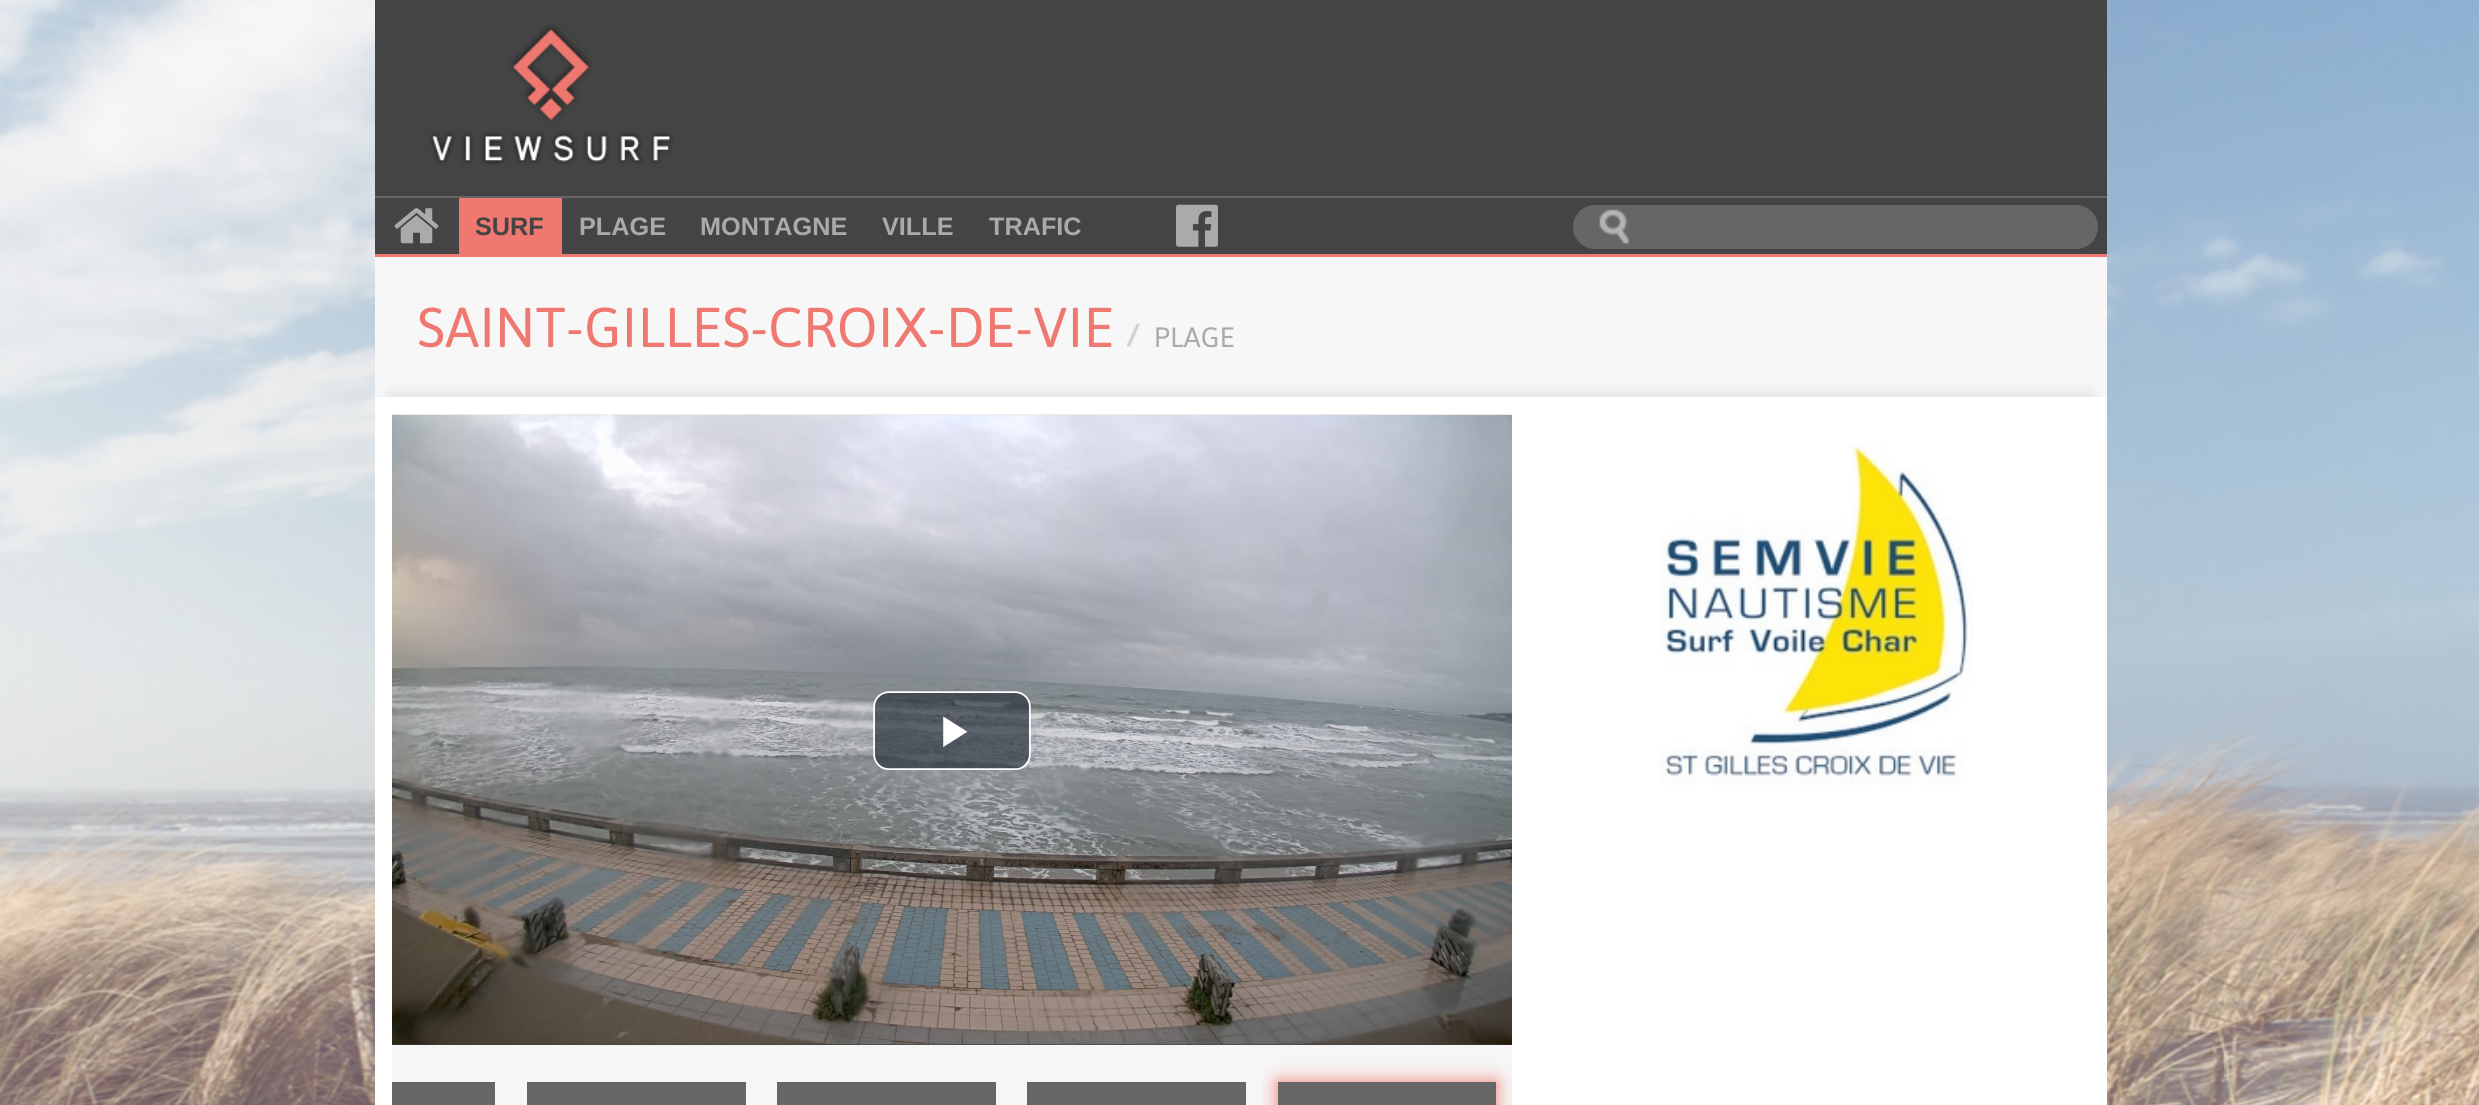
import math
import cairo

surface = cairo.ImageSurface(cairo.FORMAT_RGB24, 2479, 1105)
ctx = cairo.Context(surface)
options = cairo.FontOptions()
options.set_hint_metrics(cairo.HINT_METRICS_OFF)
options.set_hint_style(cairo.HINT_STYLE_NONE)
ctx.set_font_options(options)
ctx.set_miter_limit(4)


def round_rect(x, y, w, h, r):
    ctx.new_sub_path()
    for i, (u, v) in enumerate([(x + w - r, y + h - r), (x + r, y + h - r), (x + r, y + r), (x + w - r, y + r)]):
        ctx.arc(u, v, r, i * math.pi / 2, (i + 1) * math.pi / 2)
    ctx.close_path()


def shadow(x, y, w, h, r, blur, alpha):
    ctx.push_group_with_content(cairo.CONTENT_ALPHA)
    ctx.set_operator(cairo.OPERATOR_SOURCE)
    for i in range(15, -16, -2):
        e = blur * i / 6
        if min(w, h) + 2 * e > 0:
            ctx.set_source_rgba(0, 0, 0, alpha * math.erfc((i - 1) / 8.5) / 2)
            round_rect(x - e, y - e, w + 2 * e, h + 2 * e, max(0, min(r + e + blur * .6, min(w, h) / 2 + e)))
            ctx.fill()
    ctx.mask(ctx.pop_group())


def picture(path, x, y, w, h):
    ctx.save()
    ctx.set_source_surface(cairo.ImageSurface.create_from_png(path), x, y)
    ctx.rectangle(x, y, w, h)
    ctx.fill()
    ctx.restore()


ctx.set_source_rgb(1, 1, 1)
ctx.paint()
picture("img1.png", 0, 0, 2479, 1105)
ctx.set_source_rgb(0.267, 0.267, 0.267)
ctx.rectangle(375, 0, 1732, 254)
ctx.fill()
ctx.set_source_rgb(0.937, 0.471, 0.439)
ctx.rectangle(375, 254, 1732, 3)
ctx.fill()
picture("img2.png", 429, 24, 244, 141)
ctx.set_source_rgb(0.4, 0.4, 0.4)
ctx.rectangle(375, 196, 1732, 2)
ctx.fill()
picture("img3.png", 394, 208, 45, 36)
ctx.set_source_rgb(0.937, 0.471, 0.439)
ctx.rectangle(459, 198, 103, 56)
ctx.fill()
ctx.select_font_face("Liberation Sans", cairo.FONT_SLANT_NORMAL, cairo.FONT_WEIGHT_BOLD)
ctx.set_font_size(25.25)
ctx.set_source_rgb(0.267, 0.267, 0.267)
ctx.move_to(475, 235)
ctx.show_text("SURF")
ctx.set_source_rgb(0.667, 0.667, 0.667)
ctx.move_to(579, 235)
ctx.show_text("PLAGE")
ctx.move_to(700, 235)
ctx.show_text("MONTAGNE")
ctx.move_to(882, 235)
ctx.show_text("VILLE")
ctx.move_to(989, 235)
ctx.show_text("TRAFIC")
picture("img4.png", 1176, 204, 42, 43)
ctx.set_source_rgb(0.4, 0.4, 0.4)
round_rect(1573, 205, 525, 44, 22)
ctx.fill()
picture("img5.png", 1599, 209, 30, 35)
ctx.set_source_rgb(0.965, 0.965, 0.965)
ctx.rectangle(375, 257, 1732, 140)
ctx.fill()
ctx.select_font_face("Asap")
ctx.set_font_size(56)
ctx.set_source_rgb(0.937, 0.471, 0.439)
ctx.move_to(417, 347)
ctx.show_text("SAINT-GILLES-CROIX-DE-VIE")
picture("img6.png", 1127, 323, 13, 24)
ctx.set_font_size(28)
ctx.set_source_rgb(0.667, 0.667, 0.667)
ctx.move_to(1154, 347)
ctx.show_text("PLAGE")
ctx.set_source_rgb(0.502, 0.502, 0.502)
shadow(392, 397, 1698, 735, 0, 9, 0.3)
ctx.set_source_rgb(1, 1, 1)
ctx.rectangle(375, 397, 1732, 708)
ctx.fill()
picture("img7.png", 392, 414, 1120, 631)
ctx.set_source_rgb(0.961, 0.961, 0.961)
ctx.rectangle(392, 1045, 1120, 60)
ctx.fill()
ctx.set_source_rgb(0.4, 0.4, 0.4)
ctx.rectangle(392, 1082, 103, 23)
ctx.fill()
ctx.rectangle(527, 1082, 219, 23)
ctx.fill()
ctx.rectangle(777, 1082, 219, 23)
ctx.fill()
ctx.rectangle(1027, 1082, 219, 23)
ctx.fill()
ctx.save()
ctx.rectangle(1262, 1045, 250, 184)
ctx.clip()
ctx.set_source_rgb(0.937, 0.471, 0.439)
shadow(1278, 1082, 218, 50, 0, 9, 1)
ctx.restore()
ctx.rectangle(1278, 1082, 218, 23)
ctx.fill()
picture("img8.png", 1659, 444, 315, 341)
surface.write_to_png("page.png")
